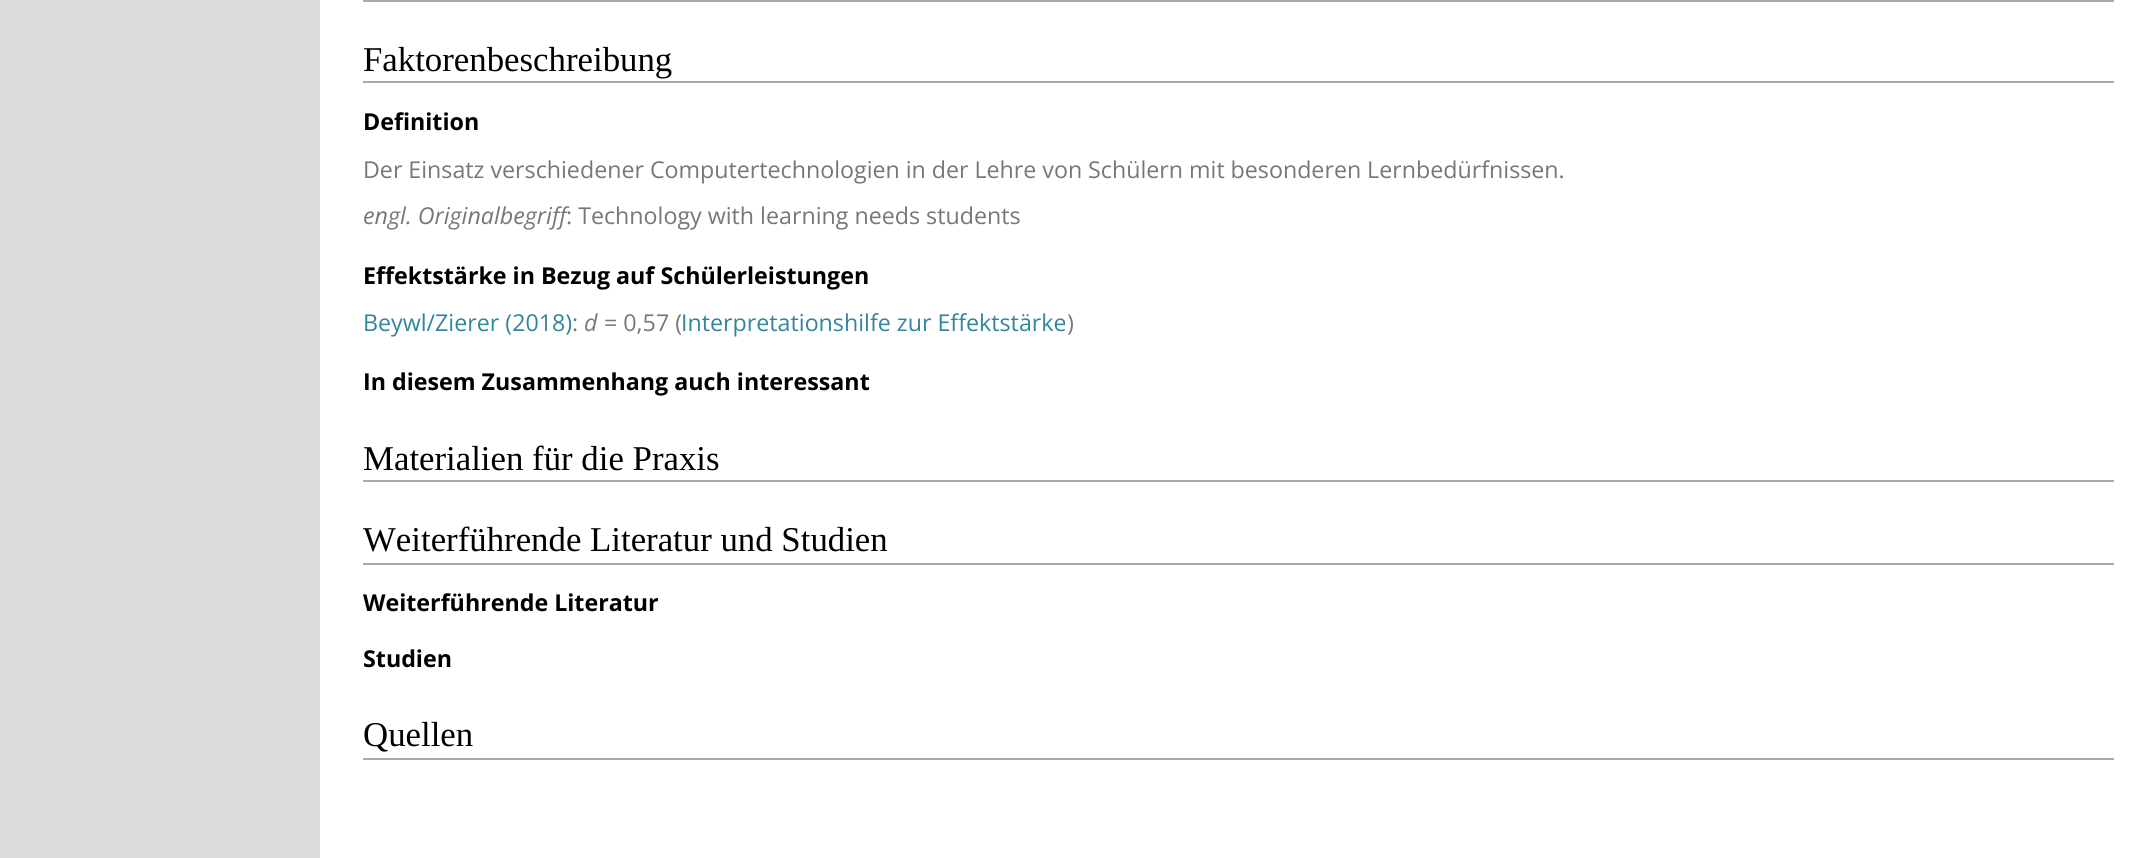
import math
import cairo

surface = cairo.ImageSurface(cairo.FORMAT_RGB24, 2156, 858)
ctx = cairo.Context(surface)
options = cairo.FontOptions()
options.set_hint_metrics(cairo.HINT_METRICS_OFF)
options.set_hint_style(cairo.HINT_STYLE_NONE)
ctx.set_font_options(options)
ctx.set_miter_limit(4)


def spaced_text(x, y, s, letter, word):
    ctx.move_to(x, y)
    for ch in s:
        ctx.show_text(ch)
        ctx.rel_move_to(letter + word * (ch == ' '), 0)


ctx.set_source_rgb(0.863, 0.863, 0.863)
ctx.paint()
ctx.set_source_rgb(1, 1, 1)
ctx.rectangle(320, 0, 1836, 858)
ctx.fill()
ctx.set_source_rgb(0.667, 0.667, 0.667)
ctx.rectangle(363, 0, 1751, 2)
ctx.fill()
ctx.rectangle(363, 81, 1751, 2)
ctx.fill()
ctx.select_font_face("Liberation Serif")
ctx.set_font_size(34.8)
ctx.set_source_rgb(0, 0, 0)
ctx.move_to(363, 71)
ctx.show_text("Faktorenbeschreibung")
ctx.select_font_face("Open Sans", cairo.FONT_SLANT_NORMAL, cairo.FONT_WEIGHT_BOLD)
ctx.set_font_size(23.23)
ctx.move_to(363, 130)
ctx.show_text("Definition")
ctx.select_font_face("Open Sans")
ctx.set_source_rgb(0.467, 0.467, 0.467)
spaced_text(363, 178, "Der Einsatz verschiedener Computertechnologien in der Lehre von Schülern mit besonderen Lernbedürfnissen.", 0, -0.1)
ctx.select_font_face("Open Sans", cairo.FONT_SLANT_ITALIC)
ctx.move_to(363, 224)
ctx.show_text("engl. Originalbegriff")
ctx.select_font_face("Open Sans")
ctx.move_to(566, 224)
ctx.show_text(": Technology with learning needs students")
ctx.select_font_face("Open Sans", cairo.FONT_SLANT_NORMAL, cairo.FONT_WEIGHT_BOLD)
ctx.set_source_rgb(0, 0, 0)
ctx.move_to(363, 284)
ctx.show_text("Effektstärke in Bezug auf Schülerleistungen")
ctx.select_font_face("Open Sans")
ctx.set_source_rgb(0.192, 0.522, 0.616)
ctx.move_to(363, 331)
ctx.show_text("Beywl/Zierer (2018)")
ctx.set_source_rgb(0.467, 0.467, 0.467)
ctx.move_to(572, 331)
ctx.show_text(":")
ctx.select_font_face("Open Sans", cairo.FONT_SLANT_ITALIC)
ctx.move_to(584, 331)
ctx.show_text("d")
ctx.select_font_face("Open Sans")
ctx.move_to(604, 331)
ctx.show_text("= 0,57 (")
ctx.set_source_rgb(0.192, 0.522, 0.616)
ctx.move_to(681, 331)
ctx.show_text("Interpretationshilfe zur Effektstärke")
ctx.set_source_rgb(0.467, 0.467, 0.467)
ctx.move_to(1067, 331)
ctx.show_text(")")
ctx.select_font_face("Open Sans", cairo.FONT_SLANT_NORMAL, cairo.FONT_WEIGHT_BOLD)
ctx.set_source_rgb(0, 0, 0)
ctx.move_to(363, 390)
ctx.show_text("In diesem Zusammenhang auch interessant")
ctx.set_source_rgb(0.667, 0.667, 0.667)
ctx.rectangle(363, 480, 1751, 2)
ctx.fill()
ctx.select_font_face("Liberation Serif")
ctx.set_font_size(34.8)
ctx.set_source_rgb(0, 0, 0)
ctx.move_to(363, 470)
ctx.show_text("Materialien für die Praxis")
ctx.set_source_rgb(0.667, 0.667, 0.667)
ctx.rectangle(363, 563, 1751, 2)
ctx.fill()
ctx.set_source_rgb(0, 0, 0)
ctx.move_to(363, 551)
ctx.show_text("Weiterführende Literatur und Studien")
ctx.select_font_face("Open Sans", cairo.FONT_SLANT_NORMAL, cairo.FONT_WEIGHT_BOLD)
ctx.set_font_size(23.23)
ctx.move_to(363, 611)
ctx.show_text("Weiterführende Literatur")
ctx.move_to(363, 667)
ctx.show_text("Studien")
ctx.set_source_rgb(0.667, 0.667, 0.667)
ctx.rectangle(363, 758, 1751, 2)
ctx.fill()
ctx.select_font_face("Liberation Serif")
ctx.set_font_size(34.8)
ctx.set_source_rgb(0, 0, 0)
ctx.move_to(363, 746)
ctx.show_text("Quellen")
surface.write_to_png("page.png")
